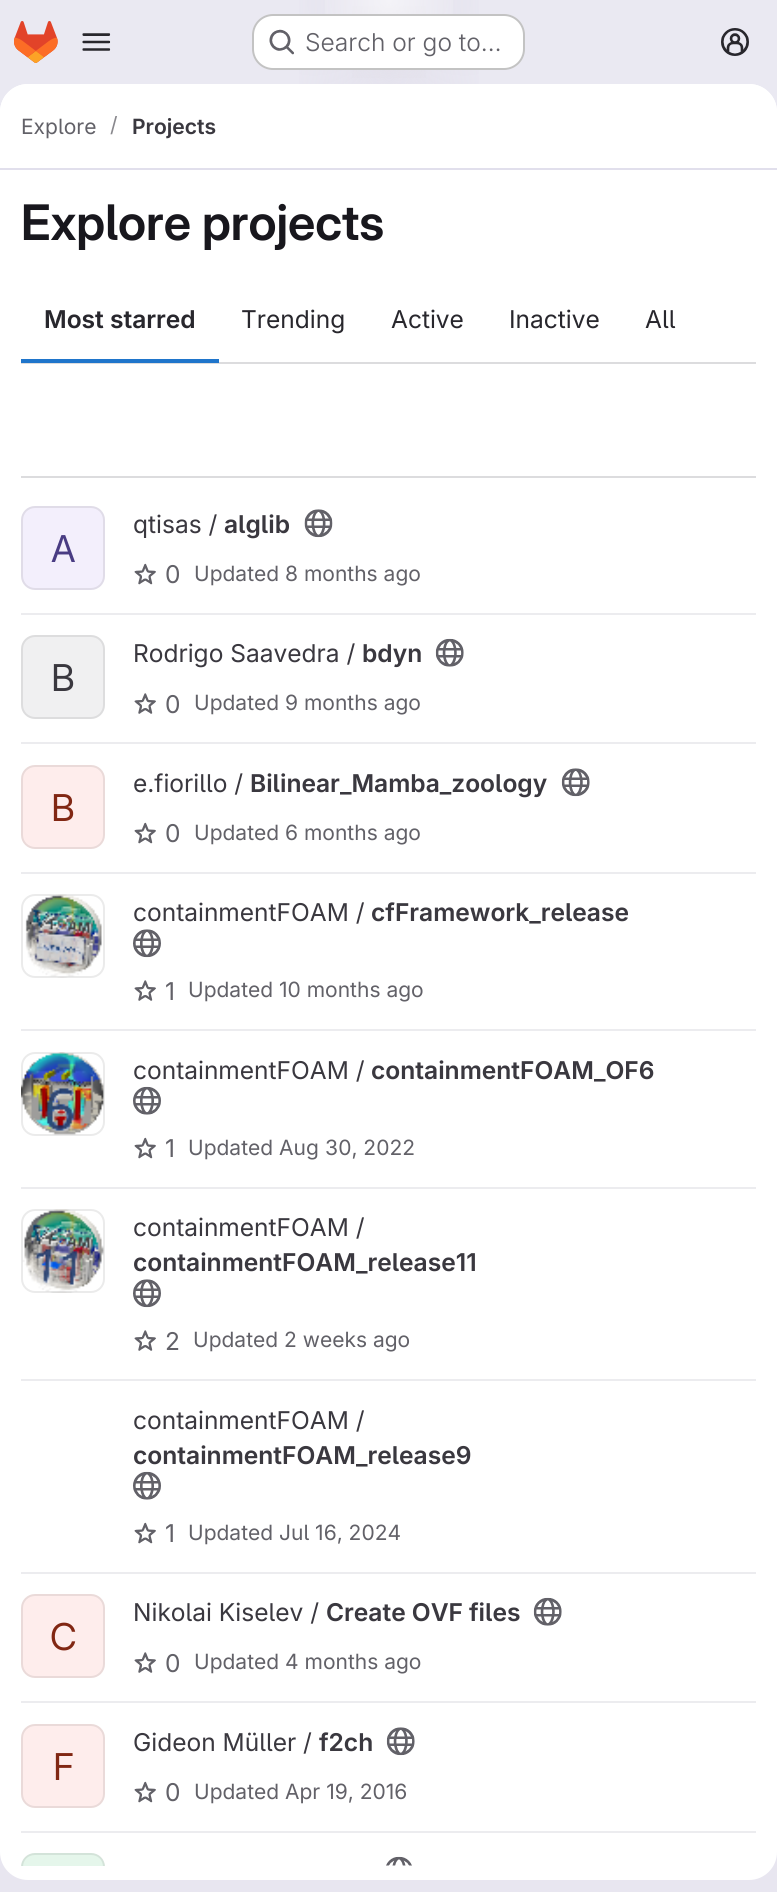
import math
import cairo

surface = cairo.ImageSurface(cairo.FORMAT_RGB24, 777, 1892)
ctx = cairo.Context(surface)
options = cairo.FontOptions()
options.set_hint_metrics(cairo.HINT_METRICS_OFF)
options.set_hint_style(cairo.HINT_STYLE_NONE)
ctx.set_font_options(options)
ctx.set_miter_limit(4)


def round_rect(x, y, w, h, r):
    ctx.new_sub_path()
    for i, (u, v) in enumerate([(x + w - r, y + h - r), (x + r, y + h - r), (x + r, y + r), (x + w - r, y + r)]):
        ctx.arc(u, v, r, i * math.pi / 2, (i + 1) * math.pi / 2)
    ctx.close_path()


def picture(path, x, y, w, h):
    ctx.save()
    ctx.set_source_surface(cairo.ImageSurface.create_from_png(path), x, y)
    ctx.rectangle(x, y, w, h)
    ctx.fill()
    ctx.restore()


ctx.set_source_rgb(1, 1, 1)
ctx.paint()
gradient = cairo.LinearGradient(562, 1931, 215, -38)
gradient.add_color_stop_rgba(0, 0.91, 0.902, 0.941, 1)
gradient.add_color_stop_rgba(0.7, 0.918, 0.914, 0.949, 1)
ctx.set_source(gradient)
ctx.rectangle(0, 0, 777, 1892)
ctx.fill()
gradient = cairo.RadialGradient(0, 0, 0, 0, 0, 1)
gradient.set_matrix(cairo.Matrix(1 / 389, 0, 0, 1 / 1894, -1 * 389 / 389, -1 * 0 / 1894))
gradient.add_color_stop_rgba(0, 0.894, 0.886, 0.929, 1)
gradient.add_color_stop_rgba(0.32, 0.894, 0.886, 0.929, 0)
ctx.set_source(gradient)
ctx.rectangle(299, 0, 180, 84)
ctx.fill()
gradient = cairo.RadialGradient(0, 0, 0, 0, 0, 1)
gradient.set_matrix(cairo.Matrix(1 / 389, 0, 0, 1 / 1894, -1 * 389 / 389, -1 * 0 / 1894))
gradient.add_color_stop_rgba(0, 0.894, 0.886, 0.925, 1)
gradient.add_color_stop_rgba(0.23, 0.894, 0.886, 0.925, 0)
ctx.set_source(gradient)
ctx.rectangle(352, 6, 74, 72)
ctx.fill()
gradient = cairo.RadialGradient(389, 0, 0, 389, 0, 1933)
gradient.add_color_stop_rgba(0, 1, 1, 1, 0.6)
gradient.add_color_stop_rgba(0.04, 1, 1, 1, 0)
ctx.set_source(gradient)
ctx.rectangle(325, 0, 128, 66)
ctx.fill()
picture("img1.png", 14, 21, 44, 42)
picture("img2.png", 82, 33, 29, 18)
ctx.set_source_rgb(1, 1, 1)
round_rect(252, 14, 273, 56, 21)
ctx.fill()
round_rect(253, 15, 271, 54, 20)
ctx.set_source_rgba(0.02, 0.02, 0.024, 0.24)
ctx.stroke()
picture("img3.png", 269, 29, 25, 26)
ctx.select_font_face("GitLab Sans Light")
ctx.set_font_size(24.5)
ctx.set_source_rgb(0.384, 0.38, 0.408)
ctx.move_to(305, 51)
ctx.show_text("Search or go to…")
picture("img4.png", 721, 28, 28, 28)
ctx.set_source_rgb(1, 1, 1)
round_rect(0, 84, 777, 1796, 28)
ctx.fill()
ctx.new_path()
ctx.move_to(28, 84)
ctx.line_to(749, 84)
ctx.curve_to(764.5, 84, 777, 96.5, 777, 112)
ctx.line_to(777, 170)
ctx.line_to(0, 170)
ctx.line_to(0, 112)
ctx.curve_to(0, 96.5, 12.5, 84, 28, 84)
ctx.close_path()
ctx.fill()
ctx.set_source_rgb(0.882, 0.875, 0.925)
ctx.rectangle(0, 168, 777, 2)
ctx.fill()
ctx.select_font_face("GitLab Sans")
ctx.set_font_size(21)
ctx.set_source_rgb(0.384, 0.38, 0.408)
ctx.move_to(21, 134)
ctx.show_text("Explore")
ctx.set_source_rgb(0.537, 0.533, 0.553)
ctx.move_to(110, 132)
ctx.show_text("/")
ctx.select_font_face("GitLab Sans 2 SemiBold")
ctx.set_source_rgb(0.227, 0.22, 0.247)
ctx.move_to(132, 134)
ctx.show_text("Projects")
ctx.select_font_face("GitLab Sans SemiBold")
ctx.set_font_size(49)
ctx.set_source_rgb(0.094, 0.09, 0.114)
ctx.move_to(21, 240)
ctx.show_text("Explore projects")
ctx.select_font_face("GitLab Sans 2 SemiBold")
ctx.set_font_size(24.5)
ctx.set_source_rgb(0.157, 0.153, 0.176)
ctx.move_to(44, 328)
ctx.show_text("Most starred")
ctx.set_source_rgb(0.863, 0.863, 0.871)
ctx.rectangle(21, 362, 735, 2)
ctx.fill()
ctx.set_source_rgb(0.122, 0.459, 0.796)
ctx.rectangle(21, 359, 198, 4)
ctx.fill()
ctx.select_font_face("GitLab Sans")
ctx.set_source_rgb(0.157, 0.153, 0.176)
ctx.move_to(241, 328)
ctx.show_text("Trending")
ctx.move_to(391, 328)
ctx.show_text("Active")
ctx.move_to(509, 328)
ctx.show_text("Inactive")
ctx.move_to(645, 328)
ctx.show_text("All")
ctx.set_source_rgb(0.863, 0.863, 0.871)
ctx.rectangle(21, 476, 735, 2)
ctx.fill()
ctx.set_source_rgb(0.925, 0.925, 0.937)
ctx.rectangle(21, 613, 735, 2)
ctx.fill()
ctx.set_source_rgb(0.953, 0.937, 0.988)
round_rect(21, 506, 84, 84, 14)
ctx.fill()
round_rect(22, 507, 82, 82, 13)
ctx.set_source_rgba(0.02, 0.02, 0.024, 0.08)
ctx.stroke()
ctx.select_font_face("GitLab Sans 2")
ctx.set_font_size(37)
ctx.set_source_rgb(0.286, 0.235, 0.514)
ctx.move_to(51, 562)
ctx.show_text("A")
ctx.select_font_face("GitLab Sans")
ctx.set_font_size(24.5)
ctx.set_source_rgb(0.227, 0.22, 0.247)
ctx.move_to(133, 533)
ctx.show_text("qtisas /")
ctx.select_font_face("GitLab Sans 2 SemiBold")
ctx.move_to(224, 533)
ctx.show_text("alglib")
picture("img5.png", 304, 509, 29, 29)
picture("img6.png", 134, 563, 22, 22)
ctx.select_font_face("GitLab Sans")
ctx.set_source_rgb(0.384, 0.38, 0.408)
ctx.move_to(165, 583)
ctx.show_text("0")
ctx.set_font_size(21)
ctx.move_to(194, 581)
ctx.show_text("Updated 8 months ago")
ctx.set_source_rgb(0.925, 0.925, 0.937)
ctx.rectangle(21, 742, 735, 2)
ctx.fill()
ctx.set_source_rgb(0.941, 0.941, 0.945)
round_rect(21, 635, 84, 84, 14)
ctx.fill()
round_rect(22, 636, 82, 82, 13)
ctx.set_source_rgba(0.02, 0.02, 0.024, 0.08)
ctx.stroke()
ctx.select_font_face("GitLab Sans 2")
ctx.set_font_size(37)
ctx.set_source_rgb(0.227, 0.22, 0.247)
ctx.move_to(51, 691)
ctx.show_text("B")
ctx.select_font_face("GitLab Sans")
ctx.set_font_size(24.5)
ctx.move_to(133, 662)
ctx.show_text("Rodrigo Saavedra /")
ctx.select_font_face("GitLab Sans 2 SemiBold")
ctx.move_to(362, 662)
ctx.show_text("bdyn")
picture("img7.png", 435, 638, 29, 29)
picture("img8.png", 134, 693, 22, 21)
ctx.select_font_face("GitLab Sans")
ctx.set_source_rgb(0.384, 0.38, 0.408)
ctx.move_to(165, 713)
ctx.show_text("0")
ctx.set_font_size(21)
ctx.move_to(194, 710)
ctx.show_text("Updated 9 months ago")
ctx.set_source_rgb(0.925, 0.925, 0.937)
ctx.rectangle(21, 872, 735, 2)
ctx.fill()
ctx.set_source_rgb(0.996, 0.929, 0.922)
round_rect(21, 765, 84, 84, 14)
ctx.fill()
round_rect(22, 766, 82, 82, 13)
ctx.set_source_rgba(0.02, 0.02, 0.024, 0.08)
ctx.stroke()
ctx.select_font_face("GitLab Sans 2")
ctx.set_font_size(37)
ctx.set_source_rgb(0.506, 0.153, 0.075)
ctx.move_to(51, 821)
ctx.show_text("B")
ctx.select_font_face("GitLab Sans")
ctx.set_font_size(24.5)
ctx.set_source_rgb(0.227, 0.22, 0.247)
ctx.move_to(133, 792)
ctx.show_text("e.fiorillo /")
ctx.select_font_face("GitLab Sans 2 SemiBold")
ctx.move_to(250, 792)
ctx.show_text("Bilinear_Mamba_zoology")
picture("img9.png", 561, 768, 29, 29)
picture("img6.png", 134, 822, 22, 22)
ctx.select_font_face("GitLab Sans")
ctx.set_source_rgb(0.384, 0.38, 0.408)
ctx.move_to(165, 842)
ctx.show_text("0")
ctx.set_font_size(21)
ctx.move_to(194, 840)
ctx.show_text("Updated 6 months ago")
ctx.set_source_rgb(0.925, 0.925, 0.937)
ctx.rectangle(21, 1029, 735, 2)
ctx.fill()
picture("img10.png", 25, 894, 77, 84)
round_rect(22, 895, 82, 82, 13)
ctx.set_source_rgba(0.02, 0.02, 0.024, 0.08)
ctx.stroke()
ctx.set_font_size(24.5)
ctx.set_source_rgb(0.227, 0.22, 0.247)
ctx.move_to(133, 921)
ctx.show_text("containmentFOAM /")
ctx.select_font_face("GitLab Sans 2 SemiBold")
ctx.move_to(371, 921)
ctx.show_text("cfFramework_release")
picture("img11.png", 133, 929, 28, 29)
picture("img8.png", 134, 980, 22, 21)
ctx.select_font_face("GitLab Sans")
ctx.set_source_rgb(0.384, 0.38, 0.408)
ctx.move_to(165, 1000)
ctx.show_text("1")
ctx.set_font_size(21)
ctx.move_to(188, 997)
ctx.show_text("Updated 10 months ago")
ctx.set_source_rgb(0.925, 0.925, 0.937)
ctx.rectangle(21, 1187, 735, 2)
ctx.fill()
picture("img12.png", 21, 1052, 83, 83)
round_rect(22, 1053, 82, 82, 13)
ctx.set_source_rgba(0.02, 0.02, 0.024, 0.08)
ctx.stroke()
ctx.set_font_size(24.5)
ctx.set_source_rgb(0.227, 0.22, 0.247)
ctx.move_to(133, 1079)
ctx.show_text("containmentFOAM /")
ctx.select_font_face("GitLab Sans 2 SemiBold")
ctx.move_to(371, 1079)
ctx.show_text("containmentFOAM_OF6")
picture("img13.png", 133, 1086, 28, 29)
picture("img6.png", 134, 1137, 22, 22)
ctx.select_font_face("GitLab Sans")
ctx.set_source_rgb(0.384, 0.38, 0.408)
ctx.move_to(165, 1157)
ctx.show_text("1")
ctx.set_font_size(21)
ctx.move_to(188, 1155)
ctx.show_text("Updated Aug 30, 2022")
ctx.set_source_rgb(0.925, 0.925, 0.937)
ctx.rectangle(21, 1379, 735, 2)
ctx.fill()
picture("img14.png", 22, 1209, 82, 84)
round_rect(22, 1210, 82, 82, 13)
ctx.set_source_rgba(0.02, 0.02, 0.024, 0.08)
ctx.stroke()
ctx.set_font_size(24.5)
ctx.set_source_rgb(0.227, 0.22, 0.247)
ctx.move_to(133, 1236)
ctx.show_text("containmentFOAM /")
ctx.select_font_face("GitLab Sans 2 SemiBold")
ctx.move_to(133, 1271)
ctx.show_text("containmentFOAM_release11")
picture("img11.png", 133, 1279, 28, 29)
picture("img8.png", 134, 1330, 22, 21)
ctx.select_font_face("GitLab Sans")
ctx.set_source_rgb(0.384, 0.38, 0.408)
ctx.move_to(165, 1350)
ctx.show_text("2")
ctx.set_font_size(21)
ctx.move_to(193, 1347)
ctx.show_text("Updated 2 weeks ago")
ctx.set_source_rgb(0.925, 0.925, 0.937)
ctx.rectangle(21, 1572, 735, 2)
ctx.fill()
ctx.set_font_size(24.5)
ctx.set_source_rgb(0.227, 0.22, 0.247)
ctx.move_to(133, 1429)
ctx.show_text("containmentFOAM /")
ctx.select_font_face("GitLab Sans 2 SemiBold")
ctx.move_to(133, 1464)
ctx.show_text("containmentFOAM_release9")
picture("img13.png", 133, 1471, 28, 29)
picture("img15.png", 134, 1522, 22, 22)
ctx.select_font_face("GitLab Sans")
ctx.set_source_rgb(0.384, 0.38, 0.408)
ctx.move_to(165, 1542)
ctx.show_text("1")
ctx.set_font_size(21)
ctx.move_to(188, 1540)
ctx.show_text("Updated Jul 16, 2024")
ctx.set_source_rgb(0.925, 0.925, 0.937)
ctx.rectangle(21, 1701, 735, 2)
ctx.fill()
ctx.set_source_rgb(0.996, 0.929, 0.922)
round_rect(21, 1594, 84, 84, 14)
ctx.fill()
round_rect(22, 1595, 82, 82, 13)
ctx.set_source_rgba(0.02, 0.02, 0.024, 0.08)
ctx.stroke()
ctx.select_font_face("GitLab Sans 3")
ctx.set_font_size(37)
ctx.set_source_rgb(0.506, 0.153, 0.075)
ctx.move_to(50, 1650)
ctx.show_text("C")
ctx.select_font_face("GitLab Sans")
ctx.set_font_size(24.5)
ctx.set_source_rgb(0.227, 0.22, 0.247)
ctx.move_to(133, 1621)
ctx.show_text("Nikolai Kiselev /")
ctx.select_font_face("GitLab Sans 2 SemiBold")
ctx.move_to(326, 1621)
ctx.show_text("Create OVF files")
picture("img7.png", 533, 1597, 29, 29)
picture("img8.png", 134, 1652, 22, 21)
ctx.select_font_face("GitLab Sans")
ctx.set_source_rgb(0.384, 0.38, 0.408)
ctx.move_to(165, 1672)
ctx.show_text("0")
ctx.set_font_size(21)
ctx.move_to(194, 1669)
ctx.show_text("Updated 4 months ago")
ctx.set_source_rgb(0.925, 0.925, 0.937)
ctx.rectangle(21, 1831, 735, 2)
ctx.fill()
ctx.set_source_rgb(0.996, 0.929, 0.922)
round_rect(21, 1724, 84, 84, 14)
ctx.fill()
round_rect(22, 1725, 82, 82, 13)
ctx.set_source_rgba(0.02, 0.02, 0.024, 0.08)
ctx.stroke()
ctx.select_font_face("GitLab Sans 2")
ctx.set_font_size(37)
ctx.set_source_rgb(0.506, 0.153, 0.075)
ctx.move_to(53, 1780)
ctx.show_text("F")
ctx.select_font_face("GitLab Sans")
ctx.set_font_size(24.5)
ctx.set_source_rgb(0.227, 0.22, 0.247)
ctx.move_to(133, 1751)
ctx.show_text("Gideon Müller /")
ctx.select_font_face("GitLab Sans 2 SemiBold")
ctx.move_to(319, 1751)
ctx.show_text("f2ch")
picture("img9.png", 386, 1727, 29, 29)
picture("img6.png", 134, 1781, 22, 22)
ctx.select_font_face("GitLab Sans")
ctx.set_source_rgb(0.384, 0.38, 0.408)
ctx.move_to(165, 1801)
ctx.show_text("0")
ctx.set_font_size(21)
ctx.move_to(194, 1799)
ctx.show_text("Updated Apr 19, 2016")
ctx.set_source_rgb(0.898, 0.961, 0.918)
ctx.new_path()
ctx.move_to(35, 1853)
ctx.line_to(91, 1853)
ctx.curve_to(98.5, 1853, 105, 1859.5, 105, 1867)
ctx.line_to(105, 1866)
ctx.line_to(21, 1866)
ctx.line_to(21, 1867)
ctx.curve_to(21, 1859.5, 27.5, 1853, 35, 1853)
ctx.close_path()
ctx.fill()
ctx.save()
ctx.rectangle(0, 170, 777, 1696)
ctx.clip()
ctx.set_source_rgba(0.02, 0.02, 0.024, 0.08)
ctx.new_path()
ctx.move_to(35, 1853)
ctx.curve_to(27, 1853, 21, 1859, 21, 1867)
ctx.line_to(21, 1879)
ctx.line_to(23, 1880)
ctx.line_to(23, 1867)
ctx.curve_to(23, 1860, 28, 1855, 35, 1855)
ctx.line_to(91, 1855)
ctx.curve_to(98, 1855, 103, 1860, 103, 1867)
ctx.line_to(103, 1880)
ctx.line_to(105, 1880)
ctx.line_to(105, 1867)
ctx.curve_to(105, 1859, 99, 1853, 91, 1853)
ctx.close_path()
ctx.fill()
ctx.restore()
picture("img16.png", 386, 1856, 26, 10)
surface.write_to_png("page.png")
